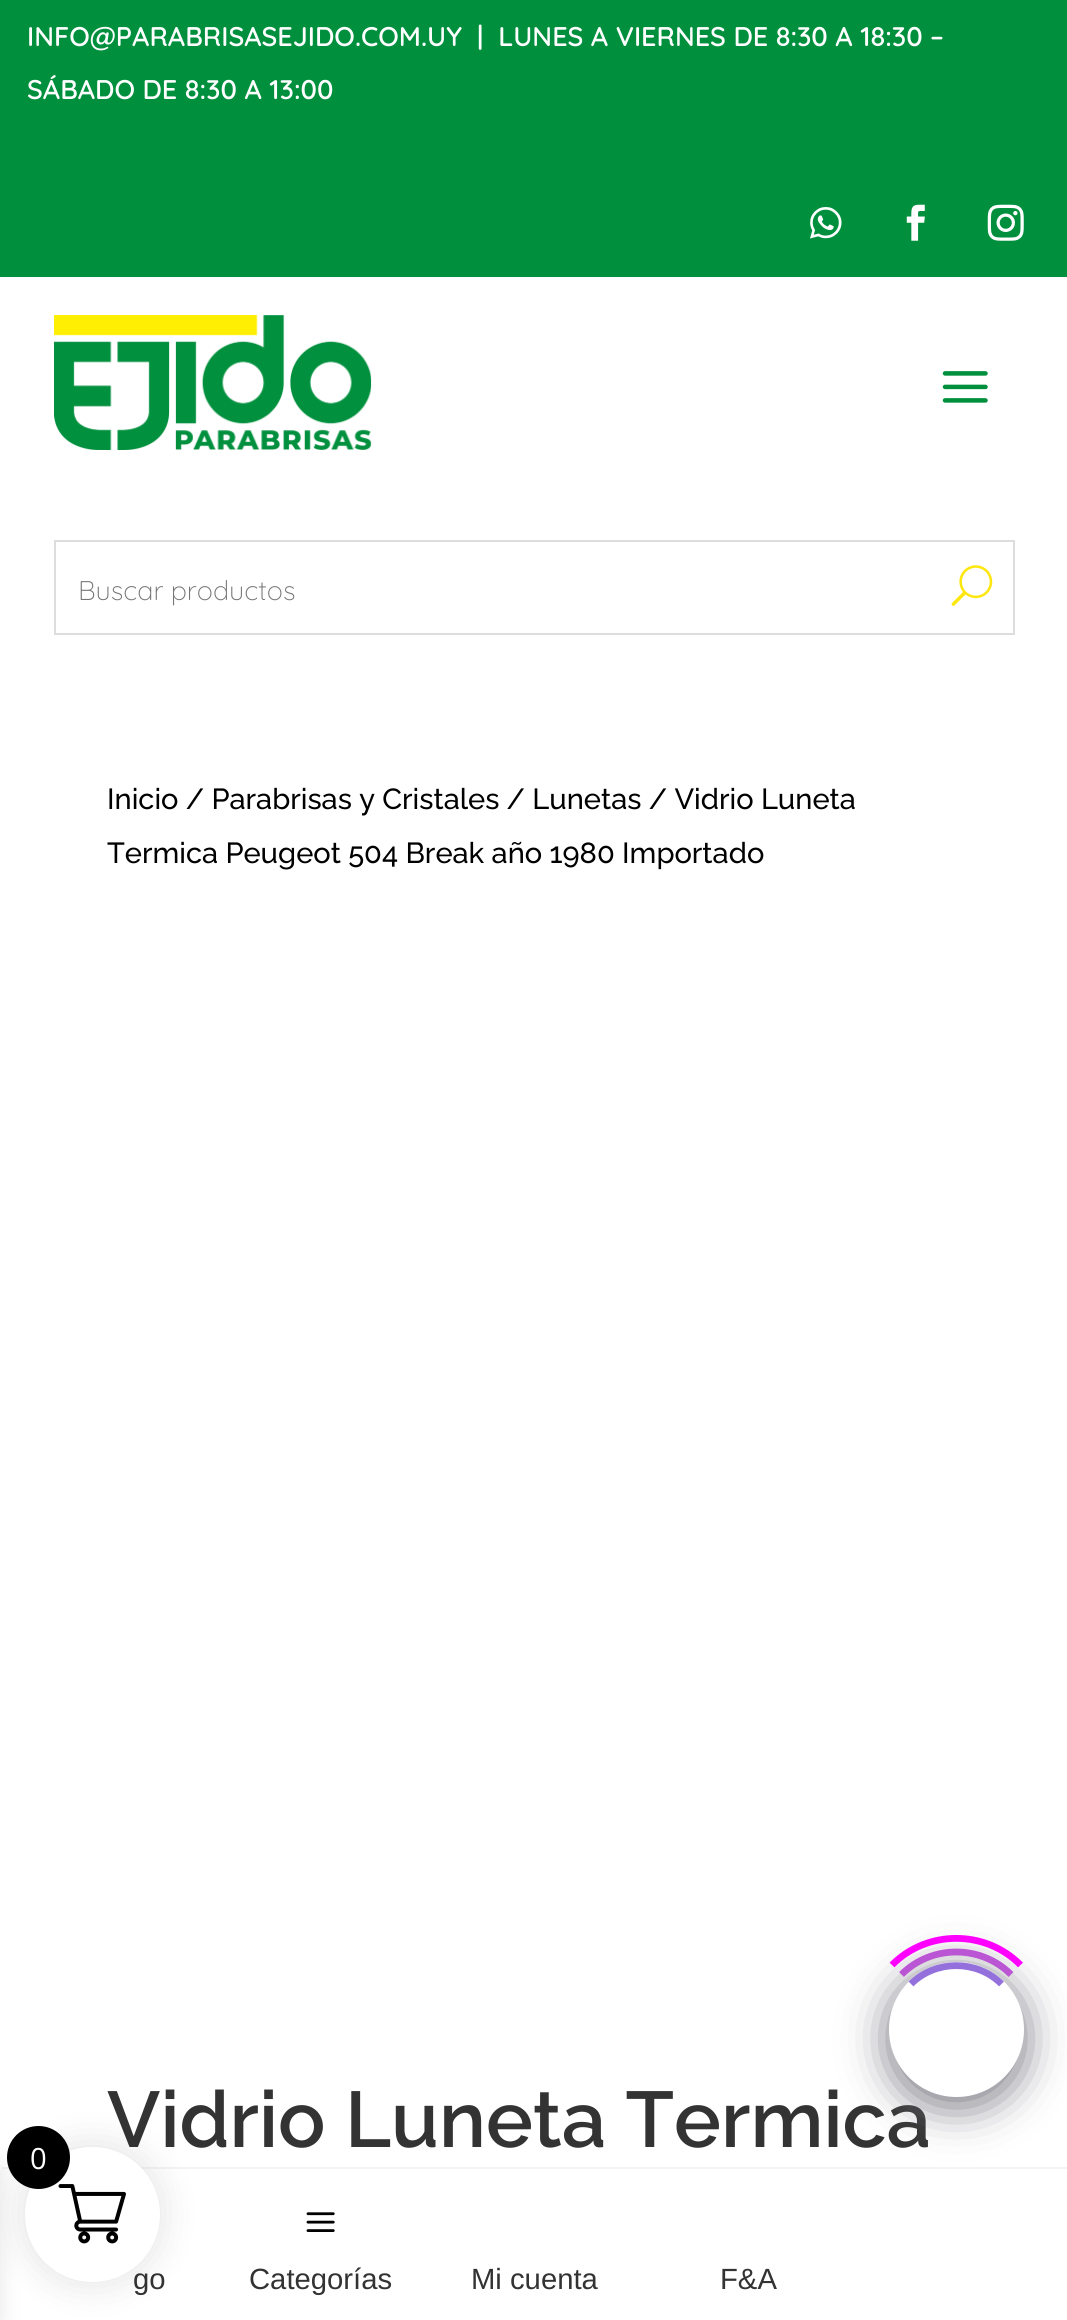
import math
import cairo

surface = cairo.ImageSurface(cairo.FORMAT_RGB24, 1067, 2320)
ctx = cairo.Context(surface)
options = cairo.FontOptions()
options.set_hint_metrics(cairo.HINT_METRICS_OFF)
options.set_hint_style(cairo.HINT_STYLE_NONE)
ctx.set_font_options(options)
ctx.set_miter_limit(4)


def round_rect(x, y, w, h, r):
    ctx.new_sub_path()
    for i, (u, v) in enumerate([(x + w - r, y + h - r), (x + r, y + h - r), (x + r, y + r), (x + w - r, y + r)]):
        ctx.arc(u, v, r, i * math.pi / 2, (i + 1) * math.pi / 2)
    ctx.close_path()


def shadow(x, y, w, h, r, blur, alpha):
    ctx.push_group_with_content(cairo.CONTENT_ALPHA)
    ctx.set_operator(cairo.OPERATOR_SOURCE)
    for i in range(15, -16, -2):
        e = blur * i / 6
        if min(w, h) + 2 * e > 0:
            ctx.set_source_rgba(0, 0, 0, alpha * math.erfc((i - 1) / 8.5) / 2)
            round_rect(x - e, y - e, w + 2 * e, h + 2 * e, max(0, min(r + e + blur * .6, min(w, h) / 2 + e)))
            ctx.fill()
    ctx.mask(ctx.pop_group())


def picture(path, x, y, w, h):
    ctx.save()
    ctx.set_source_surface(cairo.ImageSurface.create_from_png(path), x, y)
    ctx.rectangle(x, y, w, h)
    ctx.fill()
    ctx.restore()


ctx.set_source_rgb(1, 1, 1)
ctx.paint()
ctx.set_source_rgb(0, 0.565, 0.239)
ctx.rectangle(0, 0, 1067, 277)
ctx.fill()
ctx.select_font_face("Quicksand SemiBold")
ctx.set_font_size(27)
ctx.set_source_rgb(1, 1, 1)
ctx.move_to(27, 46)
ctx.show_text("INFO@PARABRISASEJIDO.COM.UY")
ctx.move_to(477, 46)
ctx.show_text("|  LUNES A VIERNES DE 8:30 A 18:30 –")
ctx.move_to(27, 99)
ctx.show_text("SÁBADO DE 8:30 A 13:00")
picture("img1.png", 810, 207, 32, 32)
picture("img2.png", 906, 204, 19, 37)
picture("img3.png", 987, 204, 37, 37)
picture("img4.png", 54, 315, 318, 135)
picture("img5.png", 942, 371, 46, 32)
ctx.rectangle(55, 541, 959, 93)
ctx.set_source_rgb(0.867, 0.867, 0.867)
ctx.stroke()
ctx.select_font_face("Quicksand Light")
ctx.set_source_rgb(0.459, 0.459, 0.459)
ctx.move_to(78, 600)
ctx.show_text("Buscar productos")
picture("img6.png", 951, 565, 42, 41)
ctx.select_font_face("Raleway Medium")
ctx.set_font_size(29)
ctx.set_source_rgb(0, 0, 0)
ctx.move_to(107, 809)
ctx.show_text("Inicio / Parabrisas y Cristales / Lunetas / Vidrio Luneta")
ctx.move_to(107, 863)
ctx.show_text("Termica Peugeot 504 Break año 1980 Importado")
ctx.select_font_face("Raleway SemiBold")
ctx.set_font_size(78.75)
ctx.set_source_rgb(0.2, 0.2, 0.2)
ctx.move_to(107, 2147)
ctx.show_text("Vidrio Luneta Termica")
ctx.set_source_rgb(0.957, 0.957, 0.957)
ctx.rectangle(2, 2167, 1065, 2)
ctx.fill()
ctx.select_font_face("Liberation Sans")
ctx.set_font_size(29.25)
ctx.set_source_rgb(0.2, 0.2, 0.2)
ctx.move_to(133, 2289)
ctx.show_text("go")
picture("img7.png", 306, 2212, 29, 20)
ctx.move_to(249, 2289)
ctx.show_text("Categorías")
ctx.move_to(471, 2289)
ctx.show_text("Mi cuenta")
ctx.move_to(720, 2289)
ctx.show_text("F&A")
ctx.set_source_rgb(0, 0, 0)
shadow(-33, 2167, 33, 153, 0, 11, 0.1)
shadow(20, 2142, 144, 144, 72, 17, 0.1)
ctx.set_source_rgb(1, 1, 1)
ctx.arc(92.5, 2214.5, 67.5, 0, 2 * math.pi)
ctx.fill()
picture("img8.png", 58, 2184, 68, 60)
ctx.set_source_rgb(0, 0, 0)
ctx.arc(38.5, 2157.5, 31.5, 0, 2 * math.pi)
ctx.fill()
ctx.select_font_face("Open Sans")
ctx.set_source_rgb(1, 1, 1)
ctx.move_to(30, 2169)
ctx.show_text("0")
ctx.set_source_rgb(0.463, 0.459, 0.502)
shadow(889, 1971, 135, 135, 67.5, 22.5, 1)
ctx.set_source_rgb(1, 1, 1)
ctx.arc(956.5, 2029.5, 67.5, 0, 2 * math.pi)
ctx.fill()
ctx.new_path()
ctx.move_to(911, 1984)
ctx.curve_to(935.5, 1959.5, 977, 1959.5, 1001.5, 1984)
ctx.set_source_rgb(0.576, 0.439, 0.859)
ctx.set_line_width(6.8)
ctx.stroke()
ctx.new_path()
ctx.move_to(901.5, 1974.5)
ctx.curve_to(931.5, 1944.5, 981, 1944.5, 1011, 1974.5)
ctx.set_source_rgb(0.729, 0.333, 0.827)
ctx.stroke()
ctx.new_path()
ctx.move_to(892, 1965)
ctx.curve_to(927, 1929.5, 985.5, 1929.5, 1020.5, 1965)
ctx.set_source_rgb(1, 0, 1)
ctx.stroke()
surface.write_to_png("page.png")
